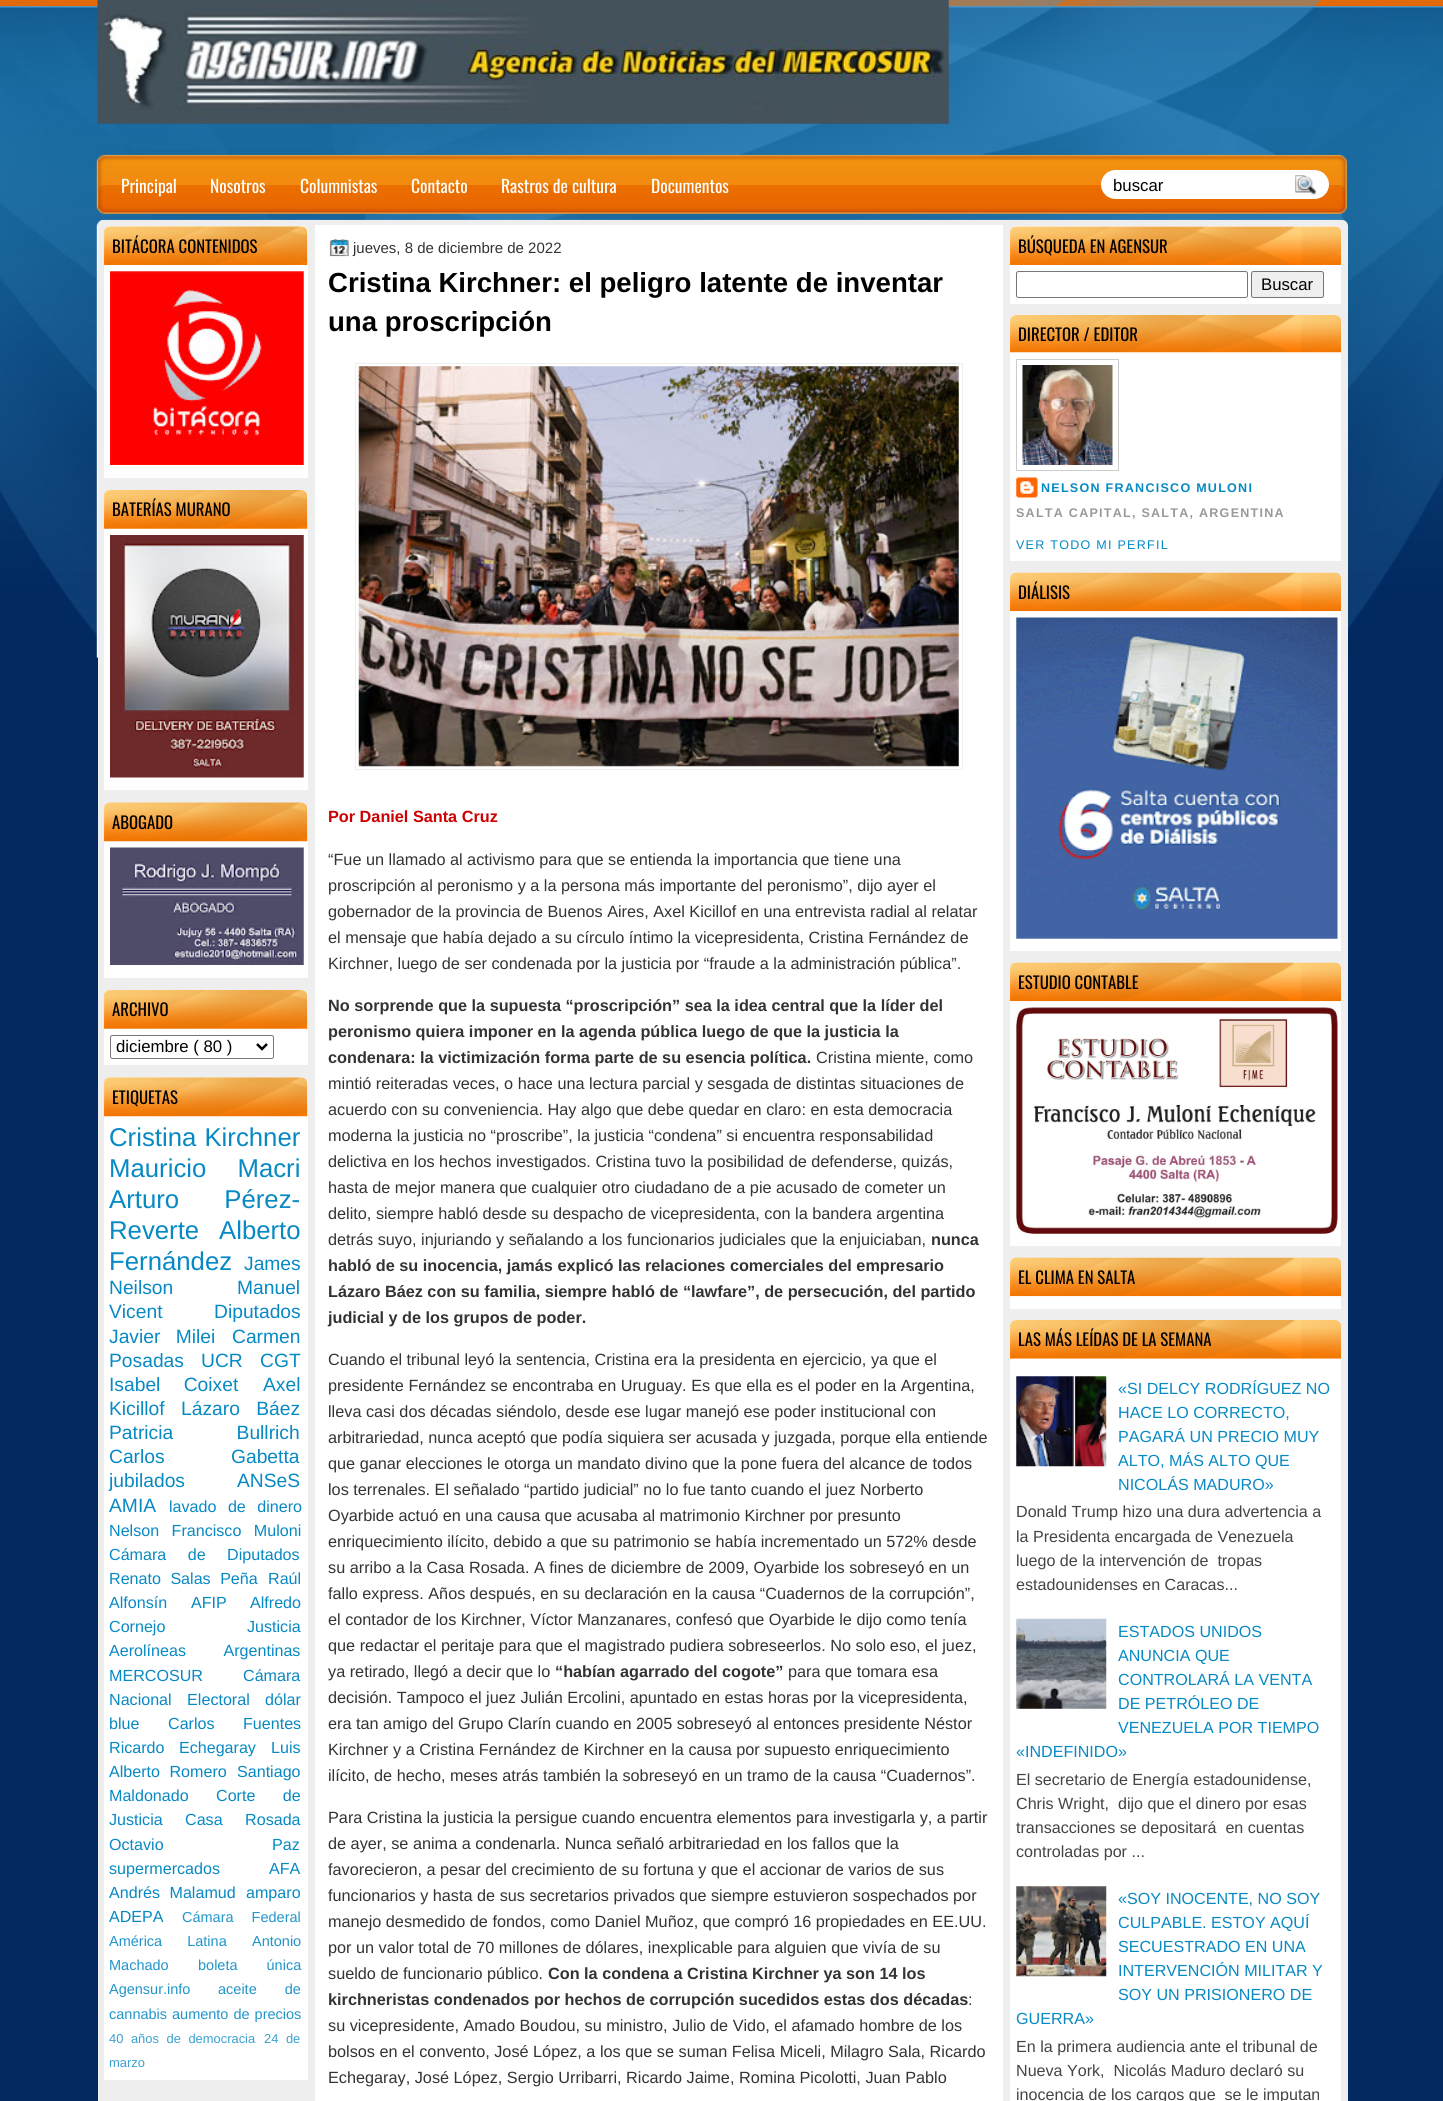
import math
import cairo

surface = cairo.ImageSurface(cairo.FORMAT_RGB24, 1443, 2101)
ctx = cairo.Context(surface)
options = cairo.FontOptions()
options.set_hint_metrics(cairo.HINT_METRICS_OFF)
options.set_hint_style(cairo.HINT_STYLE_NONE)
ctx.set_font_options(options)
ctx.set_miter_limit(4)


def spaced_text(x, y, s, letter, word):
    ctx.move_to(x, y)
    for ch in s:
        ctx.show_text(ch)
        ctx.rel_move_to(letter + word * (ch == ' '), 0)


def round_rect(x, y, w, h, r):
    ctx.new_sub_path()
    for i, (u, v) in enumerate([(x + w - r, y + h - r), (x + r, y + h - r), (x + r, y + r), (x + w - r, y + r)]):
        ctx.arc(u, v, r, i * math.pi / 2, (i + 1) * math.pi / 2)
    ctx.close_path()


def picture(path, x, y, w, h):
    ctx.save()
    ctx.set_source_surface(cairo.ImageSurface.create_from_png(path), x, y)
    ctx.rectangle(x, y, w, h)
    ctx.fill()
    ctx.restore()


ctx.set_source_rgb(0.008, 0.165, 0.38)
ctx.paint()
picture("img1.png", 0, 0, 1443, 185)
picture("img2.png", 0, 185, 1443, 473)
picture("img3.png", 97, 0, 852, 124)
ctx.select_font_face("Oswald")
ctx.set_font_size(17.5)
ctx.set_source_rgb(1, 1, 1)
ctx.move_to(121, 193)
ctx.show_text("Principal")
ctx.move_to(210, 193)
ctx.show_text("Nosotros")
ctx.move_to(300, 193)
ctx.show_text("Columnistas")
ctx.move_to(411, 193)
ctx.show_text("Contacto")
ctx.move_to(501, 193)
ctx.show_text("Rastros de cultura")
ctx.move_to(651, 193)
ctx.show_text("Documentos")
round_rect(1101, 170, 228, 29, 14.5)
ctx.fill()
ctx.select_font_face("Liberation Sans")
ctx.set_font_size(16.75)
ctx.set_source_rgb(0, 0, 0)
ctx.move_to(1113, 191)
ctx.show_text("buscar")
picture("img4.png", 1295, 175, 22, 20)
ctx.set_source_rgb(0.933, 0.933, 0.933)
round_rect(98, 220, 1250, 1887, 6)
ctx.fill()
ctx.set_source_rgb(1, 1, 1)
ctx.new_path()
ctx.move_to(110, 226)
ctx.line_to(302, 226)
ctx.curve_to(305.5, 226, 308, 228.5, 308, 232)
ctx.line_to(308, 478)
ctx.line_to(104, 478)
ctx.line_to(104, 232)
ctx.curve_to(104, 228.5, 106.5, 226, 110, 226)
ctx.close_path()
ctx.fill()
picture("img5.png", 103, 226, 205, 39)
ctx.select_font_face("Oswald")
ctx.set_source_rgb(0, 0, 0)
ctx.move_to(112, 253)
ctx.show_text("BITÁCORA CONTENIDOS")
picture("img6.png", 110, 271, 194, 194)
ctx.set_source_rgb(1, 1, 1)
ctx.new_path()
ctx.move_to(110, 490)
ctx.line_to(302, 490)
ctx.curve_to(305.5, 490, 308, 492.5, 308, 496)
ctx.line_to(308, 790)
ctx.line_to(104, 790)
ctx.line_to(104, 496)
ctx.curve_to(104, 492.5, 106.5, 490, 110, 490)
ctx.close_path()
ctx.fill()
picture("img7.png", 103, 490, 205, 39)
ctx.set_source_rgb(0, 0, 0)
ctx.move_to(112, 516)
ctx.show_text("BATERÍAS MURANO")
picture("img8.png", 110, 535, 194, 243)
ctx.set_source_rgb(1, 1, 1)
ctx.new_path()
ctx.move_to(110, 803)
ctx.line_to(302, 803)
ctx.curve_to(305.5, 803, 308, 805.5, 308, 809)
ctx.line_to(308, 978)
ctx.line_to(104, 978)
ctx.line_to(104, 809)
ctx.curve_to(104, 805.5, 106.5, 803, 110, 803)
ctx.close_path()
ctx.fill()
picture("img9.png", 103, 802, 205, 40)
ctx.set_source_rgb(0, 0, 0)
ctx.move_to(112, 829)
ctx.show_text("ABOGADO")
picture("img10.png", 110, 847, 194, 118)
ctx.set_source_rgb(1, 1, 1)
ctx.new_path()
ctx.move_to(110, 990)
ctx.line_to(302, 990)
ctx.curve_to(305.5, 990, 308, 992.5, 308, 996)
ctx.line_to(308, 1065)
ctx.line_to(104, 1065)
ctx.line_to(104, 996)
ctx.curve_to(104, 992.5, 106.5, 990, 110, 990)
ctx.close_path()
ctx.fill()
picture("img7.png", 103, 990, 205, 39)
ctx.set_source_rgb(0, 0, 0)
ctx.move_to(112, 1016)
ctx.show_text("ARCHIVO")
round_rect(110.5, 1035.5, 163, 23, 2)
ctx.set_source_rgb(0.463, 0.463, 0.463)
ctx.set_line_width(1)
ctx.stroke()
ctx.new_path()
ctx.move_to(257, 1044)
ctx.line_to(262, 1049)
ctx.line_to(267, 1044)
ctx.set_source_rgb(0, 0, 0)
ctx.set_line_width(2.5)
ctx.stroke()
ctx.select_font_face("Liberation Sans")
ctx.move_to(116, 1052)
ctx.show_text("diciembre ( 80 )")
ctx.set_source_rgb(1, 1, 1)
ctx.new_path()
ctx.move_to(110, 1078)
ctx.line_to(302, 1078)
ctx.curve_to(305.5, 1078, 308, 1080.5, 308, 1084)
ctx.line_to(308, 2080)
ctx.line_to(104, 2080)
ctx.line_to(104, 1084)
ctx.curve_to(104, 1080.5, 106.5, 1078, 110, 1078)
ctx.close_path()
ctx.fill()
picture("img9.png", 103, 1077, 205, 40)
ctx.select_font_face("Oswald")
ctx.set_source_rgb(0, 0, 0)
ctx.move_to(112, 1104)
ctx.show_text("ETIQUETAS")
ctx.select_font_face("Liberation Sans")
ctx.set_font_size(25.75)
ctx.set_source_rgb(0.031, 0.537, 0.769)
spaced_text(109, 1146, "Cristina Kirchner", 0, 1)
spaced_text(109, 1177, "Mauricio Macri", 0, 24)
spaced_text(109, 1208, "Arturo Pérez-", 0, 38)
ctx.move_to(109, 1239)
ctx.show_text("Reverte")
ctx.move_to(219, 1239)
ctx.show_text("Alberto")
ctx.move_to(109, 1270)
ctx.show_text("Fernández")
ctx.set_font_size(19.25)
ctx.move_to(244, 1270)
ctx.show_text("James")
ctx.move_to(109, 1294)
ctx.show_text("Neilson")
ctx.move_to(237, 1294)
ctx.show_text("Manuel")
ctx.move_to(109, 1318)
ctx.show_text("Vicent")
ctx.move_to(214, 1318)
ctx.show_text("Diputados")
spaced_text(109, 1343, "Javier Milei", 0, 10)
ctx.move_to(232, 1343)
ctx.show_text("Carmen")
ctx.move_to(109, 1367)
ctx.show_text("Posadas")
ctx.move_to(201, 1367)
ctx.show_text("UCR")
ctx.move_to(260, 1367)
ctx.show_text("CGT")
spaced_text(109, 1391, "Isabel Coixet", 0, 18)
ctx.move_to(263, 1391)
ctx.show_text("Axel")
ctx.move_to(109, 1415)
ctx.show_text("Kicillof")
spaced_text(181, 1415, "Lázaro Báez", 0, 11)
spaced_text(109, 1439, "Patricia Bullrich", 0, 58)
spaced_text(109, 1463, "Carlos Gabetta", 0, 61)
ctx.move_to(109, 1487)
ctx.show_text("jubilados")
ctx.move_to(237, 1487)
ctx.show_text("ANSeS")
ctx.move_to(109, 1512)
ctx.show_text("AMIA")
ctx.set_font_size(16.1)
spaced_text(169, 1512, "lavado de dinero", 0, 7)
spaced_text(109, 1536, "Nelson Francisco Muloni", 0, 8)
spaced_text(109, 1560, "Cámara de Diputados", 0, 17)
spaced_text(109, 1584, "Renato Salas Peña", 0, 5)
ctx.move_to(268, 1584)
ctx.show_text("Raúl")
ctx.move_to(109, 1608)
ctx.show_text("Alfonsín")
ctx.move_to(191, 1608)
ctx.show_text("AFIP")
ctx.move_to(250, 1608)
ctx.show_text("Alfredo")
ctx.move_to(109, 1632)
ctx.show_text("Cornejo")
ctx.move_to(247, 1632)
ctx.show_text("Justicia")
spaced_text(109, 1656, "Aerolíneas Argentinas", 0, 33)
ctx.move_to(109, 1681)
ctx.show_text("MERCOSUR")
ctx.move_to(243, 1681)
ctx.show_text("Cámara")
spaced_text(109, 1705, "Nacional Electoral", 0, 11)
ctx.move_to(265, 1705)
ctx.show_text("dólar")
ctx.move_to(109, 1729)
ctx.show_text("blue")
spaced_text(168, 1729, "Carlos Fuentes", 0, 24)
spaced_text(109, 1753, "Ricardo Echegaray", 0, 10)
ctx.move_to(271, 1753)
ctx.show_text("Luis")
spaced_text(109, 1777, "Alberto Romero", 0, 5)
ctx.move_to(237, 1777)
ctx.show_text("Santiago")
ctx.move_to(109, 1801)
ctx.show_text("Maldonado")
spaced_text(216, 1801, "Corte de", 0, 23)
ctx.move_to(109, 1825)
ctx.show_text("Justicia")
spaced_text(185, 1825, "Casa Rosada", 0, 18)
spaced_text(109, 1850, "Octavio Paz", 0, 104)
ctx.move_to(109, 1874)
ctx.show_text("supermercados")
ctx.move_to(269, 1874)
ctx.show_text("AFA")
spaced_text(109, 1898, "Andrés Malamud", 0, 5)
ctx.move_to(246, 1898)
ctx.show_text("amparo")
ctx.move_to(109, 1922)
ctx.show_text("ADEPA")
ctx.set_font_size(14.5)
ctx.set_source_rgb(0.129, 0.584, 0.792)
spaced_text(182, 1922, "Cámara Federal", 0, 14)
spaced_text(109, 1946, "América Latina", 0, 21)
ctx.move_to(252, 1946)
ctx.show_text("Antonio")
ctx.move_to(109, 1970)
ctx.show_text("Machado")
spaced_text(198, 1970, "boleta única", 0, 25)
ctx.move_to(109, 1994)
ctx.show_text("Agensur.info")
spaced_text(218, 1994, "aceite de", 0, 24)
ctx.move_to(109, 2019)
ctx.show_text("cannabis")
spaced_text(172, 2019, "aumento de precios", 0, 1)
ctx.set_font_size(12.9)
ctx.set_source_rgb(0.224, 0.631, 0.816)
spaced_text(109, 2043, "40 años de democracia", 0, 4)
spaced_text(264, 2043, "24 de", 0, 4)
ctx.move_to(109, 2067)
ctx.show_text("marzo")
ctx.set_source_rgb(1, 1, 1)
ctx.rectangle(315, 225, 688, 1876)
ctx.fill()
picture("img11.png", 329, 238, 20, 19)
ctx.set_font_size(15)
ctx.set_source_rgb(0.2, 0.2, 0.2)
ctx.move_to(353, 253)
ctx.show_text("jueves, 8 de diciembre de 2022")
ctx.select_font_face("Liberation Sans", cairo.FONT_SLANT_NORMAL, cairo.FONT_WEIGHT_BOLD)
ctx.set_font_size(27.6)
ctx.set_source_rgb(0, 0, 0)
ctx.move_to(328, 292)
ctx.show_text("Cristina Kirchner: el peligro latente de inventar")
ctx.move_to(328, 331)
ctx.show_text("una proscripción")
ctx.rectangle(355.5, 363.5, 607, 406)
ctx.set_source_rgb(0.933, 0.933, 0.933)
ctx.set_line_width(1)
ctx.stroke()
picture("img12.png", 358, 366, 601, 401)
ctx.set_font_size(16.25)
ctx.set_source_rgb(0.8, 0, 0)
ctx.move_to(328, 822)
ctx.show_text("Por Daniel Santa Cruz")
ctx.select_font_face("Liberation Sans")
ctx.set_source_rgb(0.2, 0.2, 0.2)
ctx.move_to(328, 865)
ctx.show_text("“Fue un llamado al activismo para que se entienda la importancia que tiene una")
ctx.move_to(328, 891)
ctx.show_text("proscripción al peronismo y a la persona más importante del peronismo”, dijo ayer el")
ctx.move_to(328, 917)
ctx.show_text("gobernador de la provincia de Buenos Aires, Axel Kicillof en una entrevista radial al relatar")
ctx.move_to(328, 943)
ctx.show_text("el mensaje que había dejado a su círculo íntimo la vicepresidenta, Cristina Fernández de")
ctx.move_to(328, 969)
ctx.show_text("Kirchner, luego de ser condenada por la justicia por “fraude a la administración pública”.")
ctx.select_font_face("Liberation Sans", cairo.FONT_SLANT_NORMAL, cairo.FONT_WEIGHT_BOLD)
ctx.move_to(328, 1011)
ctx.show_text("No sorprende que la supuesta “proscripción” sea la idea central que la líder del")
ctx.move_to(328, 1037)
ctx.show_text("peronismo quiera imponer en la agenda pública luego de que la justicia la")
ctx.move_to(328, 1063)
ctx.show_text("condenara: la victimización forma parte de su esencia política.")
ctx.select_font_face("Liberation Sans")
ctx.move_to(816, 1063)
ctx.show_text("Cristina miente, como")
ctx.move_to(328, 1089)
ctx.show_text("mintió reiteradas veces, o hace una lectura parcial y sesgada de distintas situaciones de")
ctx.move_to(328, 1115)
ctx.show_text("acuerdo con su conveniencia. Hay algo que debe quedar en claro: en esta democracia")
ctx.move_to(328, 1141)
ctx.show_text("moderna la justicia no “proscribe”, la justicia “condena” si encuentra responsabilidad")
ctx.move_to(328, 1167)
ctx.show_text("delictiva en los hechos investigados. Cristina tuvo la posibilidad de defenderse, quizás,")
ctx.move_to(328, 1193)
ctx.show_text("hasta de mejor manera que cualquier otro ciudadano de a pie acusado de cometer un")
ctx.move_to(328, 1219)
ctx.show_text("delito, siempre habló desde su despacho de vicepresidenta, con la bandera argentina")
ctx.move_to(328, 1245)
ctx.show_text("detrás suyo, injuriando y señalando a los funcionarios judiciales que la enjuiciaban,")
ctx.select_font_face("Liberation Sans", cairo.FONT_SLANT_NORMAL, cairo.FONT_WEIGHT_BOLD)
ctx.move_to(931, 1245)
ctx.show_text("nunca")
ctx.move_to(328, 1271)
ctx.show_text("habló de su inocencia, jamás explicó las relaciones comerciales del empresario")
ctx.move_to(328, 1297)
ctx.show_text("Lázaro Báez con su familia, siempre habló de “lawfare”, de persecución, del partido")
ctx.move_to(328, 1323)
ctx.show_text("judicial y de los grupos de poder.")
ctx.select_font_face("Liberation Sans")
ctx.move_to(328, 1365)
ctx.show_text("Cuando el tribunal leyó la sentencia, Cristina era la presidenta en ejercicio, ya que el")
ctx.move_to(328, 1391)
ctx.show_text("presidente Fernández se encontraba en Uruguay. Es que ella es el poder en la Argentina,")
ctx.move_to(328, 1417)
ctx.show_text("lleva casi dos décadas siéndolo, desde ese lugar manejó ese poder institucional con")
ctx.move_to(328, 1443)
ctx.show_text("arbitrariedad, nunca aceptó que podía siquiera ser acusada y juzgada, porque ella entiende")
ctx.move_to(328, 1469)
ctx.show_text("que ganar elecciones le otorga un mandato divino que la pone fuera del alcance de todos")
ctx.move_to(328, 1495)
ctx.show_text("los terrenales. El señalado “partido judicial” no lo fue tanto cuando el juez Norberto")
ctx.move_to(328, 1521)
ctx.show_text("Oyarbide actuó en una causa que acusaba al matrimonio Kirchner por presunto")
ctx.move_to(328, 1547)
ctx.show_text("enriquecimiento ilícito, debido a que su patrimonio se había incrementado un 572% desde")
ctx.move_to(328, 1573)
ctx.show_text("su arribo a la Casa Rosada. A fines de diciembre de 2009, Oyarbide los sobreseyó en un")
ctx.move_to(328, 1599)
ctx.show_text("fallo express. Años después, en su declaración en la causa “Cuadernos de la corrupción”,")
ctx.move_to(328, 1625)
ctx.show_text("el contador de los Kirchner, Víctor Manzanares, confesó que Oyarbide le dijo como tenía")
ctx.move_to(328, 1651)
ctx.show_text("que redactar el peritaje para que el magistrado pudiera sobreseerlos. No solo eso, el juez,")
ctx.move_to(328, 1677)
ctx.show_text("ya retirado, llegó a decir que lo")
ctx.select_font_face("Liberation Sans", cairo.FONT_SLANT_NORMAL, cairo.FONT_WEIGHT_BOLD)
ctx.move_to(555, 1677)
ctx.show_text("“habían agarrado del cogote”")
ctx.select_font_face("Liberation Sans")
ctx.move_to(788, 1677)
ctx.show_text("para que tomara esa")
ctx.move_to(328, 1703)
ctx.show_text("decisión. Tampoco el juez Julián Ercolini, apuntado en estas horas por la vicepresidenta,")
ctx.move_to(328, 1729)
ctx.show_text("era tan amigo del Grupo Clarín cuando en 2005 sobreseyó al entonces presidente Néstor")
ctx.move_to(328, 1755)
ctx.show_text("Kirchner y a Cristina Fernández de Kirchner en la causa por supuesto enriquecimiento")
ctx.move_to(328, 1781)
ctx.show_text("ilícito, de hecho, meses atrás también la sobreseyó en un tramo de la causa “Cuadernos”.")
ctx.move_to(328, 1823)
ctx.show_text("Para Cristina la justicia la persigue cuando encuentra elementos para investigarla y, a partir")
ctx.move_to(328, 1849)
ctx.show_text("de ayer, se anima a condenarla. Nunca señaló arbitrariedad en los fallos que la")
ctx.move_to(328, 1875)
ctx.show_text("favorecieron, a pesar del crecimiento de su fortuna y que el accionar de varios de sus")
ctx.move_to(328, 1901)
ctx.show_text("funcionarios y hasta de sus secretarios privados que siempre estuvieron sospechados por")
ctx.move_to(328, 1927)
ctx.show_text("manejo desmedido de fondos, como Daniel Muñoz, que compró 16 propiedades en EE.UU.")
ctx.move_to(328, 1953)
ctx.show_text("por un valor total de 70 millones de dólares, inexplicable para alguien que vivía de su")
ctx.move_to(328, 1979)
ctx.show_text("sueldo de funcionario público.")
ctx.select_font_face("Liberation Sans", cairo.FONT_SLANT_NORMAL, cairo.FONT_WEIGHT_BOLD)
ctx.move_to(548, 1979)
ctx.show_text("Con la condena a Cristina Kirchner ya son 14 los")
ctx.move_to(328, 2005)
ctx.show_text("kirchneristas condenados por hechos de corrupción sucedidos estas dos décadas")
ctx.select_font_face("Liberation Sans")
ctx.move_to(968, 2005)
ctx.show_text(":")
ctx.move_to(328, 2031)
ctx.show_text("su vicepresidente, Amado Boudou, su ministro, Julio de Vido, el afamado hombre de los")
ctx.move_to(328, 2057)
ctx.show_text("bolsos en el convento, José López, a los que se suman Felisa Miceli, Milagro Sala, Ricardo")
ctx.move_to(328, 2083)
ctx.show_text("Echegaray, José López, Sergio Urribarri, Ricardo Jaime, Romina Picolotti, Juan Pablo")
ctx.set_source_rgb(1, 1, 1)
ctx.new_path()
ctx.move_to(1016, 226)
ctx.line_to(1335, 226)
ctx.curve_to(1338.5, 226, 1341, 228.5, 1341, 232)
ctx.line_to(1341, 304)
ctx.line_to(1010, 304)
ctx.line_to(1010, 232)
ctx.curve_to(1010, 228.5, 1012.5, 226, 1016, 226)
ctx.close_path()
ctx.fill()
picture("img13.png", 1010, 226, 331, 39)
ctx.select_font_face("Oswald")
ctx.set_font_size(16.75)
ctx.set_source_rgb(0, 0, 0)
ctx.move_to(1018, 253)
ctx.show_text("BÚSQUEDA EN AGENSUR")
round_rect(1016.5, 271.5, 231, 26, 2)
ctx.set_source_rgb(0.463, 0.463, 0.463)
ctx.stroke()
ctx.set_source_rgb(0.937, 0.937, 0.937)
round_rect(1251.5, 271.5, 72, 26, 2)
ctx.fill_preserve()
ctx.set_source_rgb(0.463, 0.463, 0.463)
ctx.stroke()
ctx.select_font_face("Liberation Sans")
ctx.set_source_rgb(0, 0, 0)
ctx.move_to(1261, 290)
ctx.show_text("Buscar")
ctx.set_source_rgb(1, 1, 1)
ctx.new_path()
ctx.move_to(1016, 315)
ctx.line_to(1335, 315)
ctx.curve_to(1338.5, 315, 1341, 317.5, 1341, 321)
ctx.line_to(1341, 561)
ctx.line_to(1010, 561)
ctx.line_to(1010, 321)
ctx.curve_to(1010, 317.5, 1012.5, 315, 1016, 315)
ctx.close_path()
ctx.fill()
picture("img14.png", 1010, 315, 331, 38)
ctx.select_font_face("Oswald")
ctx.set_source_rgb(0, 0, 0)
ctx.move_to(1018, 341)
ctx.show_text("DIRECTOR / EDITOR")
ctx.rectangle(1016.5, 359.5, 102, 111)
ctx.set_source_rgb(0.8, 0.8, 0.8)
ctx.stroke()
picture("img15.png", 1022, 365, 91, 100)
picture("img16.png", 1016, 477, 22, 21)
ctx.select_font_face("Liberation Sans", cairo.FONT_SLANT_NORMAL, cairo.FONT_WEIGHT_BOLD)
ctx.set_font_size(12.55)
ctx.set_source_rgb(0.031, 0.537, 0.769)
spaced_text(1041, 492, "NELSON FRANCISCO MULONI", 1.25, 0)
ctx.set_source_rgb(0.6, 0.6, 0.6)
spaced_text(1016, 517, "SALTA CAPITAL, SALTA, ARGENTINA", 1.25, 0)
ctx.select_font_face("Liberation Sans")
ctx.set_source_rgb(0.031, 0.537, 0.769)
spaced_text(1016, 549, "VER TODO MI PERFIL", 1.25, 0)
ctx.set_source_rgb(1, 1, 1)
ctx.new_path()
ctx.move_to(1016, 573)
ctx.line_to(1335, 573)
ctx.curve_to(1338.5, 573, 1341, 575.5, 1341, 579)
ctx.line_to(1341, 951)
ctx.line_to(1010, 951)
ctx.line_to(1010, 579)
ctx.curve_to(1010, 575.5, 1012.5, 573, 1016, 573)
ctx.close_path()
ctx.fill()
picture("img17.png", 1010, 572, 331, 40)
ctx.select_font_face("Oswald")
ctx.set_font_size(16.75)
ctx.set_source_rgb(0, 0, 0)
ctx.move_to(1018, 599)
ctx.show_text("DIÁLISIS")
picture("img18.png", 1016, 617, 322, 322)
ctx.set_source_rgb(1, 1, 1)
ctx.new_path()
ctx.move_to(1016, 963)
ctx.line_to(1335, 963)
ctx.curve_to(1338.5, 963, 1341, 965.5, 1341, 969)
ctx.line_to(1341, 1246)
ctx.line_to(1010, 1246)
ctx.line_to(1010, 969)
ctx.curve_to(1010, 965.5, 1012.5, 963, 1016, 963)
ctx.close_path()
ctx.fill()
picture("img19.png", 1010, 962, 331, 40)
ctx.set_source_rgb(0, 0, 0)
ctx.move_to(1018, 989)
ctx.show_text("ESTUDIO CONTABLE")
picture("img20.png", 1016, 1007, 322, 227)
ctx.set_source_rgb(1, 1, 1)
ctx.new_path()
ctx.move_to(1016, 1258)
ctx.line_to(1335, 1258)
ctx.curve_to(1338.5, 1258, 1341, 1260.5, 1341, 1264)
ctx.line_to(1341, 1309)
ctx.line_to(1010, 1309)
ctx.line_to(1010, 1264)
ctx.curve_to(1010, 1260.5, 1012.5, 1258, 1016, 1258)
ctx.close_path()
ctx.fill()
picture("img21.png", 1010, 1257, 331, 40)
ctx.set_source_rgb(0, 0, 0)
ctx.move_to(1018, 1284)
ctx.show_text("EL CLIMA EN SALTA")
ctx.set_source_rgb(1, 1, 1)
ctx.new_path()
ctx.move_to(1016, 1320)
ctx.line_to(1335, 1320)
ctx.curve_to(1338.5, 1320, 1341, 1322.5, 1341, 1326)
ctx.line_to(1341, 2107)
ctx.line_to(1010, 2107)
ctx.line_to(1010, 1326)
ctx.curve_to(1010, 1322.5, 1012.5, 1320, 1016, 1320)
ctx.close_path()
ctx.fill()
picture("img22.png", 1010, 1320, 331, 39)
ctx.set_source_rgb(0, 0, 0)
ctx.move_to(1018, 1346)
ctx.show_text("LAS MÁS LEÍDAS DE LA SEMANA")
picture("img23.png", 1016, 1376, 91, 91)
ctx.select_font_face("Liberation Sans")
ctx.set_font_size(16.1)
ctx.set_source_rgb(0.031, 0.537, 0.769)
ctx.move_to(1118, 1394)
ctx.show_text("«SI DELCY RODRÍGUEZ NO")
ctx.move_to(1118, 1418)
ctx.show_text("HACE LO CORRECTO,")
ctx.move_to(1118, 1442)
ctx.show_text("PAGARÁ UN PRECIO MUY")
ctx.move_to(1118, 1466)
ctx.show_text("ALTO, MÁS ALTO QUE")
ctx.move_to(1118, 1490)
ctx.show_text("NICOLÁS MADURO»")
ctx.set_source_rgb(0.267, 0.267, 0.267)
ctx.move_to(1016, 1517)
ctx.show_text("Donald Trump hizo una dura advertencia a")
ctx.move_to(1016, 1542)
ctx.show_text("la Presidenta encargada de Venezuela")
ctx.move_to(1016, 1566)
ctx.show_text("luego de la intervención de  tropas")
ctx.move_to(1016, 1590)
ctx.show_text("estadounidenses en Caracas...")
picture("img24.png", 1016, 1618, 91, 91)
ctx.set_source_rgb(0.031, 0.537, 0.769)
ctx.move_to(1118, 1637)
ctx.show_text("ESTADOS UNIDOS")
ctx.move_to(1118, 1661)
ctx.show_text("ANUNCIA QUE")
ctx.move_to(1118, 1685)
ctx.show_text("CONTROLARÁ LA VENTA")
ctx.move_to(1118, 1709)
ctx.show_text("DE PETRÓLEO DE")
ctx.move_to(1118, 1733)
ctx.show_text("VENEZUELA POR TIEMPO")
ctx.move_to(1016, 1757)
ctx.show_text("«INDEFINIDO»")
ctx.set_source_rgb(0.267, 0.267, 0.267)
ctx.move_to(1016, 1785)
ctx.show_text("El secretario de Energía estadounidense,")
ctx.move_to(1016, 1809)
ctx.show_text("Chris Wright,  dijo que el dinero por esas")
ctx.move_to(1016, 1833)
ctx.show_text("transacciones se depositará  en cuentas")
ctx.move_to(1016, 1857)
ctx.show_text("controladas por ...")
picture("img25.png", 1016, 1886, 91, 91)
ctx.set_source_rgb(0.031, 0.537, 0.769)
ctx.move_to(1118, 1904)
ctx.show_text("«SOY INOCENTE, NO SOY")
ctx.move_to(1118, 1928)
ctx.show_text("CULPABLE. ESTOY AQUÍ")
ctx.move_to(1118, 1952)
ctx.show_text("SECUESTRADO EN UNA")
ctx.move_to(1118, 1976)
ctx.show_text("INTERVENCIÓN MILITAR Y")
ctx.move_to(1118, 2000)
ctx.show_text("SOY UN PRISIONERO DE")
ctx.move_to(1016, 2024)
ctx.show_text("GUERRA»")
ctx.set_source_rgb(0.267, 0.267, 0.267)
ctx.move_to(1016, 2052)
ctx.show_text("En la primera audiencia ante el tribunal de")
ctx.move_to(1016, 2076)
ctx.show_text("Nueva York,  Nicolás Maduro declaró su")
ctx.move_to(1016, 2100)
ctx.show_text("inocencia de los cargos que  se le imputan")
surface.write_to_png("page.png")
